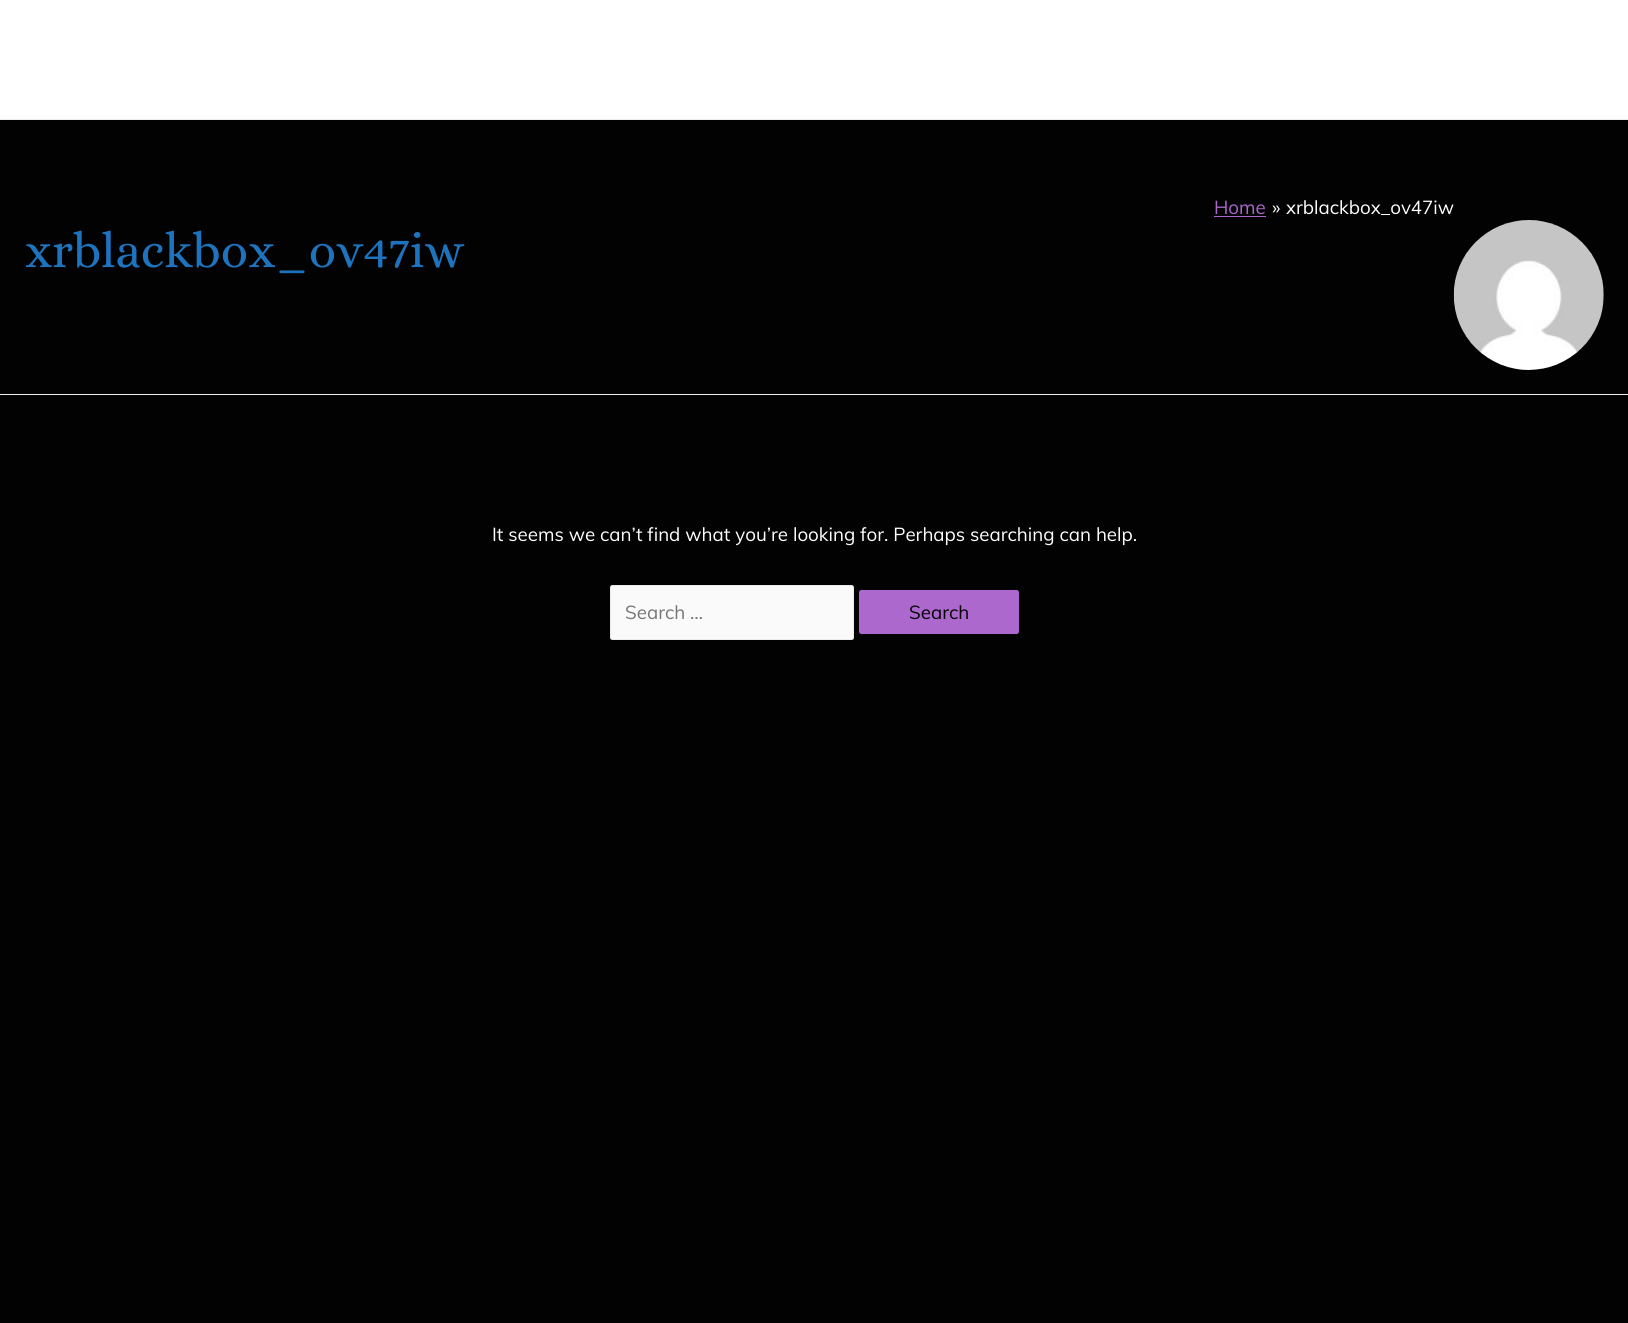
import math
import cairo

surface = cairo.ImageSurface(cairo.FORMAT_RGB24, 1628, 1323)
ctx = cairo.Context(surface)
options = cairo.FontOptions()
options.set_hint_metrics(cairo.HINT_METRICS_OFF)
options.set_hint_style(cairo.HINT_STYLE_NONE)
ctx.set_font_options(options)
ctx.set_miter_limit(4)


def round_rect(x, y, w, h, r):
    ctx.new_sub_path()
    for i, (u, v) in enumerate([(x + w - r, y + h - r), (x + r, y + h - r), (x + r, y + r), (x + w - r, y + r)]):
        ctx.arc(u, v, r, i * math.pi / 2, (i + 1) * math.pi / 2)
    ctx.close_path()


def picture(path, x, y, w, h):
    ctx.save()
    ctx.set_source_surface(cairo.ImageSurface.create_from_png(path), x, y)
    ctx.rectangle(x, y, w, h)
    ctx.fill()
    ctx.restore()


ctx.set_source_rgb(0.008, 0.008, 0.008)
ctx.paint()
ctx.set_source_rgb(1, 1, 1)
ctx.rectangle(0, 0, 1628, 119)
ctx.fill()
ctx.set_source_rgb(0.918, 0.918, 0.918)
ctx.rectangle(0, 119, 1628, 1)
ctx.fill()
ctx.set_source_rgb(0.933, 0.933, 0.933)
ctx.rectangle(0, 394, 1628, 1)
ctx.fill()
ctx.select_font_face("Muli")
ctx.set_font_size(18.75)
ctx.set_source_rgb(0.675, 0.408, 0.8)
ctx.move_to(1214, 214)
ctx.show_text("Home")
ctx.rectangle(1214, 216, 52, 1)
ctx.fill()
ctx.set_source_rgb(1, 1, 1)
ctx.move_to(1272, 214)
ctx.show_text("»")
ctx.move_to(1286, 214)
ctx.show_text("xrblackbox_ov47iw")
ctx.select_font_face("Alice")
ctx.set_font_size(50)
ctx.set_source_rgb(0.118, 0.451, 0.745)
ctx.move_to(25, 267)
ctx.show_text("xrblackbox_ov47iw")
picture("img1.png", 1453, 220, 151, 150)
ctx.select_font_face("Muli")
ctx.set_font_size(18.75)
ctx.set_source_rgb(1, 1, 1)
ctx.move_to(492, 541)
ctx.show_text("It seems we can’t find what you’re looking for. Perhaps searching can help.")
ctx.set_source_rgb(0.98, 0.98, 0.98)
round_rect(610.5, 585.5, 243, 54, 2)
ctx.fill_preserve()
ctx.set_source_rgb(0.918, 0.918, 0.918)
ctx.set_line_width(1)
ctx.stroke()
ctx.set_source_rgb(0.459, 0.459, 0.459)
ctx.move_to(625, 619)
ctx.show_text("Search …")
ctx.set_source_rgb(0.675, 0.408, 0.8)
round_rect(859, 590, 160, 44, 2.5)
ctx.fill()
ctx.set_source_rgb(0, 0, 0)
ctx.move_to(909, 619)
ctx.show_text("Search")
surface.write_to_png("page.png")
